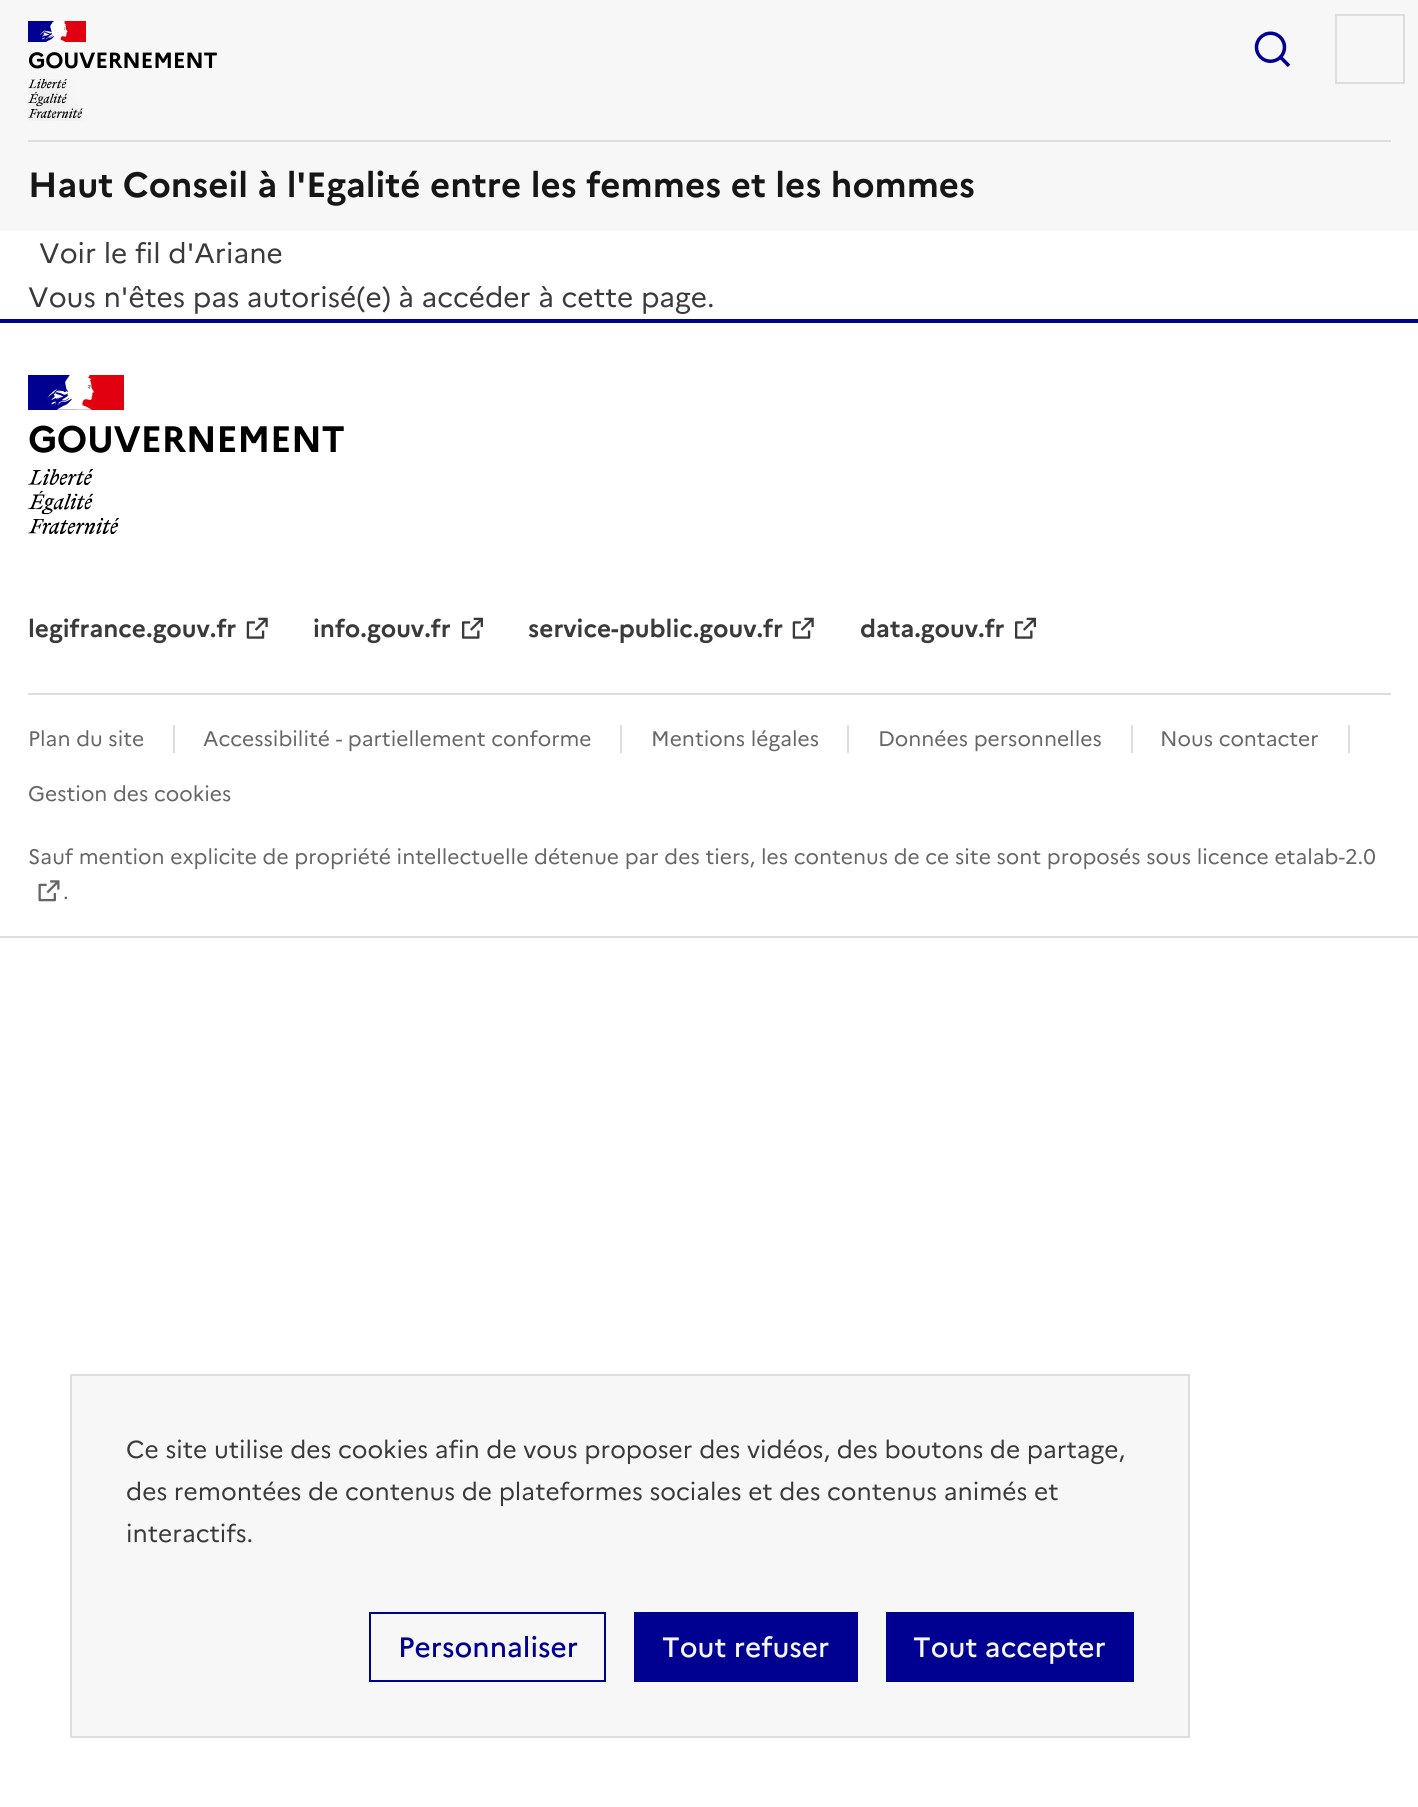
import math
import cairo

surface = cairo.ImageSurface(cairo.FORMAT_RGB24, 1418, 1807)
ctx = cairo.Context(surface)
options = cairo.FontOptions()
options.set_hint_metrics(cairo.HINT_METRICS_OFF)
options.set_hint_style(cairo.HINT_STYLE_NONE)
ctx.set_font_options(options)
ctx.set_miter_limit(4)


def spaced_text(x, y, s, letter, word):
    ctx.move_to(x, y)
    for ch in s:
        ctx.show_text(ch)
        ctx.rel_move_to(letter + word * (ch == ' '), 0)


def picture(path, x, y, w, h):
    ctx.save()
    ctx.set_source_surface(cairo.ImageSurface.create_from_png(path), x, y)
    ctx.rectangle(x, y, w, h)
    ctx.fill()
    ctx.restore()


ctx.set_source_rgb(1, 1, 1)
ctx.paint()
ctx.set_source_rgb(0.965, 0.965, 0.965)
ctx.rectangle(0, 0, 1418, 231)
ctx.fill()
ctx.set_source_rgb(0, 0, 0.569)
ctx.rectangle(28, 21, 27, 21)
ctx.fill()
ctx.set_source_rgb(0.882, 0, 0.059)
ctx.rectangle(60, 21, 26, 21)
ctx.fill()
picture("img1.png", 39, 21, 29, 21)
ctx.select_font_face("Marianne", cairo.FONT_SLANT_NORMAL, cairo.FONT_WEIGHT_BOLD)
ctx.set_font_size(22)
ctx.set_source_rgb(0, 0, 0)
spaced_text(28, 68, "GOUVERNEMENT", -0.25, 0)
picture("img2.png", 28, 79, 55, 42)
picture("img3.png", 1254, 31, 37, 36)
ctx.rectangle(1336, 15, 68, 68)
ctx.set_source_rgb(0.867, 0.867, 0.867)
ctx.stroke()
ctx.rectangle(28, 140, 1363, 2)
ctx.fill()
ctx.set_font_size(35)
ctx.set_source_rgb(0.086, 0.086, 0.086)
ctx.move_to(28, 197)
ctx.show_text("Haut Conseil à l'Egalité entre les femmes et les hommes")
ctx.select_font_face("Marianne")
ctx.set_font_size(28)
ctx.set_source_rgb(0.227, 0.227, 0.227)
ctx.move_to(39, 263)
ctx.show_text("Voir le fil d'Ariane")
ctx.move_to(28, 307)
ctx.show_text("Vous n'êtes pas autorisé(e) à accéder à cette page.")
ctx.set_source_rgb(0.867, 0.867, 0.867)
ctx.rectangle(0, 936, 1418, 2)
ctx.fill()
ctx.set_source_rgb(0, 0, 0.569)
ctx.rectangle(0, 319, 1418, 4)
ctx.fill()
ctx.rectangle(28, 375, 49, 35)
ctx.fill()
ctx.set_source_rgb(0.882, 0, 0.059)
ctx.rectangle(77, 375, 47, 35)
ctx.fill()
picture("img4.png", 47, 375, 47, 35)
ctx.select_font_face("Marianne", cairo.FONT_SLANT_NORMAL, cairo.FONT_WEIGHT_BOLD)
ctx.set_font_size(36.75)
ctx.set_source_rgb(0, 0, 0)
spaced_text(28, 452, "GOUVERNEMENT", -0.4, 0)
picture("img5.png", 28, 469, 91, 65)
ctx.set_font_size(24.5)
ctx.set_source_rgb(0.227, 0.227, 0.227)
ctx.move_to(28, 637)
ctx.show_text("legifrance.gouv.fr")
picture("img6.png", 246, 617, 22, 22)
ctx.move_to(313, 637)
ctx.show_text("info.gouv.fr")
picture("img7.png", 462, 617, 21, 22)
ctx.move_to(528, 637)
ctx.show_text("service-public.gouv.fr")
picture("img6.png", 792, 617, 22, 22)
ctx.move_to(860, 637)
ctx.show_text("data.gouv.fr")
picture("img7.png", 1015, 617, 21, 22)
ctx.set_source_rgb(0.867, 0.867, 0.867)
ctx.rectangle(28, 693, 1363, 2)
ctx.fill()
ctx.select_font_face("Marianne")
ctx.set_font_size(21)
ctx.set_source_rgb(0.4, 0.4, 0.4)
ctx.move_to(28, 746)
ctx.show_text("Plan du site")
ctx.set_source_rgb(0.867, 0.867, 0.867)
ctx.rectangle(173, 725, 2, 28)
ctx.fill()
ctx.set_source_rgb(0.4, 0.4, 0.4)
ctx.move_to(203, 746)
ctx.show_text("Accessibilité - partiellement conforme")
ctx.set_source_rgb(0.867, 0.867, 0.867)
ctx.rectangle(620, 725, 2, 28)
ctx.fill()
ctx.set_source_rgb(0.4, 0.4, 0.4)
ctx.move_to(651, 746)
ctx.show_text("Mentions légales")
ctx.set_source_rgb(0.867, 0.867, 0.867)
ctx.rectangle(847, 725, 2, 28)
ctx.fill()
ctx.set_source_rgb(0.4, 0.4, 0.4)
ctx.move_to(878, 746)
ctx.show_text("Données personnelles")
ctx.set_source_rgb(0.867, 0.867, 0.867)
ctx.rectangle(1131, 725, 2, 28)
ctx.fill()
ctx.set_source_rgb(0.4, 0.4, 0.4)
ctx.move_to(1160, 746)
ctx.show_text("Nous contacter")
ctx.set_source_rgb(0.867, 0.867, 0.867)
ctx.rectangle(1348, 725, 2, 28)
ctx.fill()
ctx.set_source_rgb(0.4, 0.4, 0.4)
ctx.move_to(28, 801)
ctx.show_text("Gestion des cookies")
ctx.move_to(28, 864)
ctx.show_text("Sauf mention explicite de propriété intellectuelle détenue par des tiers, les contenus de ce site sont proposés sous licence etalab-2.0")
picture("img8.png", 38, 880, 22, 22)
ctx.move_to(63, 899)
ctx.show_text(".")
ctx.set_source_rgb(0.965, 0.965, 0.965)
ctx.rectangle(71, 1375, 1118, 362)
ctx.fill_preserve()
ctx.set_source_rgb(0.867, 0.867, 0.867)
ctx.stroke()
ctx.set_font_size(24.5)
ctx.set_source_rgb(0.227, 0.227, 0.227)
ctx.move_to(126, 1458)
ctx.show_text("Ce site utilise des cookies afin de vous proposer des vidéos, des boutons de partage,")
ctx.move_to(126, 1500)
ctx.show_text("des remontées de contenus de plateformes sociales et des contenus animés et")
ctx.move_to(126, 1542)
ctx.show_text("interactifs.")
ctx.rectangle(370, 1613, 235, 68)
ctx.set_source_rgb(0, 0, 0.569)
ctx.stroke()
ctx.select_font_face("Marianne Medium")
ctx.set_font_size(28)
ctx.move_to(398, 1657)
ctx.show_text("Personnaliser")
ctx.rectangle(634, 1612, 224, 70)
ctx.fill()
ctx.set_source_rgb(0.961, 0.961, 0.996)
ctx.move_to(662, 1657)
ctx.show_text("Tout refuser")
ctx.set_source_rgb(0, 0, 0.569)
ctx.rectangle(886, 1612, 248, 70)
ctx.fill()
ctx.set_source_rgb(0.961, 0.961, 0.996)
ctx.move_to(913, 1657)
ctx.show_text("Tout accepter")
surface.write_to_png("page.png")
